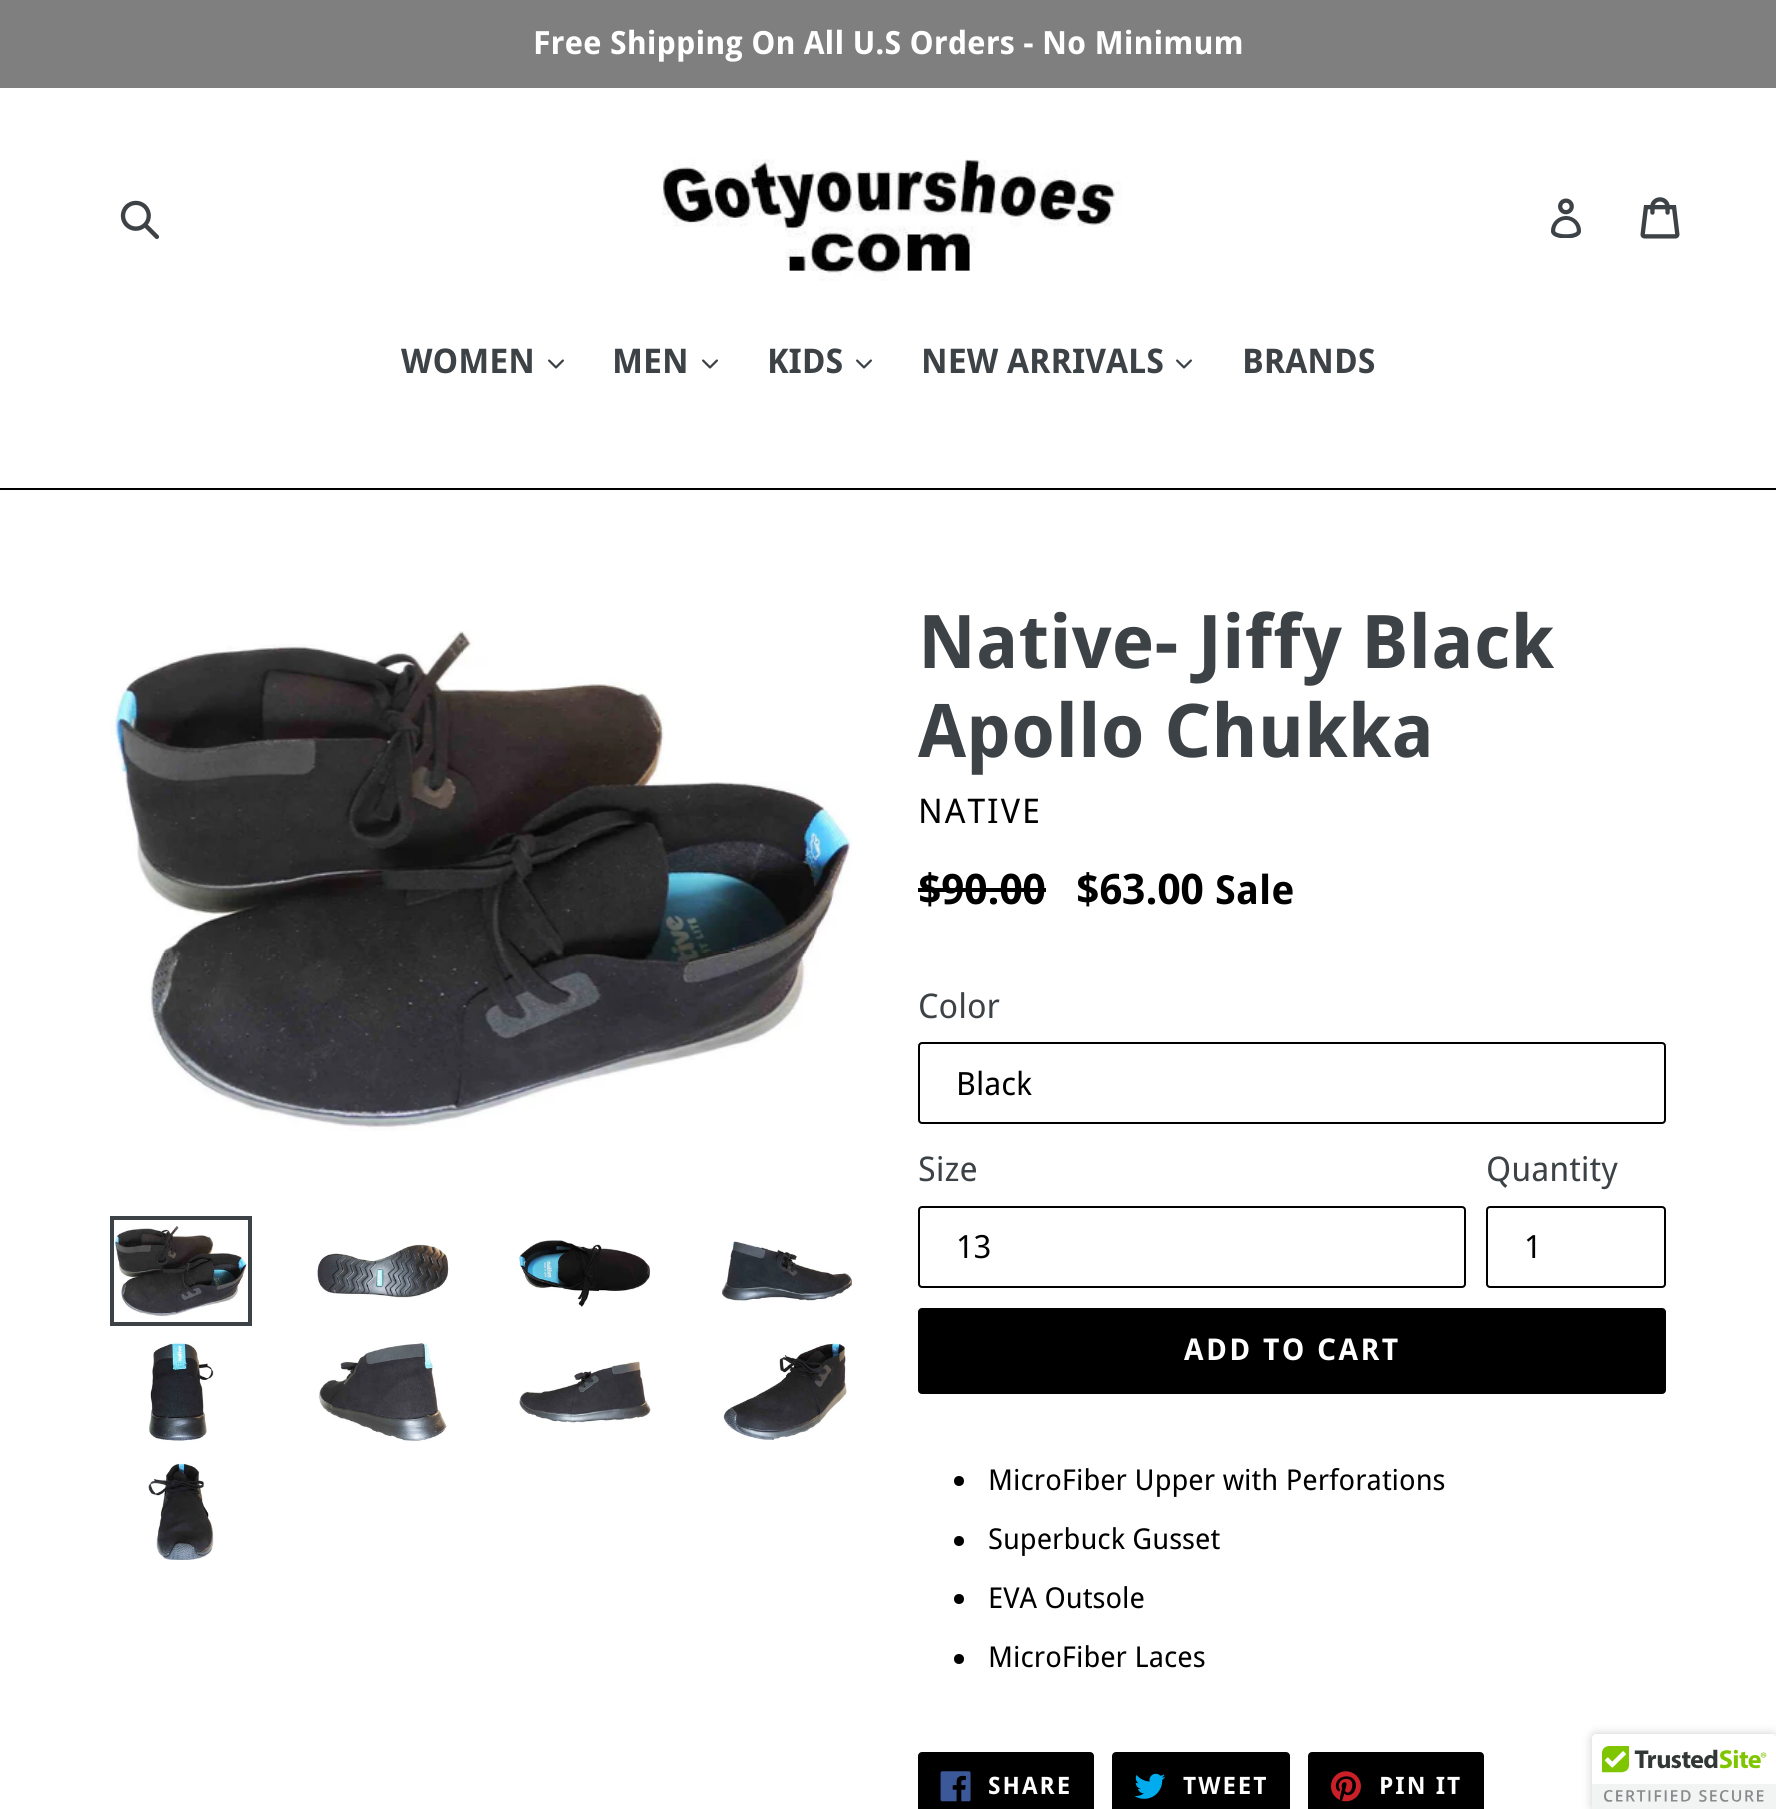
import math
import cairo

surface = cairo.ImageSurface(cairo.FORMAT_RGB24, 1776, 1809)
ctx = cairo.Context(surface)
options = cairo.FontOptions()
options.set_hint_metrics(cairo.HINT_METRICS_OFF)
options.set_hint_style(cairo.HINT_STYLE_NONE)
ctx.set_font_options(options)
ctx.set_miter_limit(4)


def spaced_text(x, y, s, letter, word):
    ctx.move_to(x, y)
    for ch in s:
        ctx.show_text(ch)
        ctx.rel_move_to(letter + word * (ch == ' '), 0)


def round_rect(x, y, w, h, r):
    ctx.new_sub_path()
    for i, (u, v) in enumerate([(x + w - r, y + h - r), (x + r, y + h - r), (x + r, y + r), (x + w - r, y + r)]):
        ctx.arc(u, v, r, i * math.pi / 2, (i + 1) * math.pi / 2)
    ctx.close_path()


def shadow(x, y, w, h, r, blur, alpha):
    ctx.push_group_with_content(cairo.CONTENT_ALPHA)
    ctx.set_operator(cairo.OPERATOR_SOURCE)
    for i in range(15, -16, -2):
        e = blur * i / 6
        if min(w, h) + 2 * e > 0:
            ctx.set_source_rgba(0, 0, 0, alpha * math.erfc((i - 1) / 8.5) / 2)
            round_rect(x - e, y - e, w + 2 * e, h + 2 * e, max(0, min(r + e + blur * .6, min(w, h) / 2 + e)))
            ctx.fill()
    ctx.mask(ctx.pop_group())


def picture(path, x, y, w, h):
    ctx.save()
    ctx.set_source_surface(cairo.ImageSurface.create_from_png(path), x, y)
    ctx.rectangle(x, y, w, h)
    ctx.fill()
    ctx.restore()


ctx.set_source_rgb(1, 1, 1)
ctx.paint()
ctx.set_source_rgb(0.498, 0.498, 0.498)
ctx.rectangle(0, 0, 1776, 88)
ctx.fill()
ctx.select_font_face("Droid Sans", cairo.FONT_SLANT_NORMAL, cairo.FONT_WEIGHT_BOLD)
ctx.set_font_size(32)
ctx.set_source_rgb(1, 1, 1)
ctx.move_to(533, 54)
ctx.show_text("Free Shipping On All U.S Orders - No Minimum")
picture("img1.png", 120, 200, 40, 40)
picture("img2.png", 662, 159, 460, 122)
picture("img3.png", 1551, 198, 30, 40)
picture("img4.png", 1640, 197, 40, 42)
ctx.set_source_rgb(0, 0, 0)
ctx.rectangle(0, 488, 1776, 2)
ctx.fill()
ctx.set_font_size(34)
ctx.set_source_rgb(0.239, 0.259, 0.275)
ctx.move_to(401, 373)
ctx.show_text("WOMEN")
picture("img5.png", 548, 359, 16, 10)
ctx.move_to(612, 373)
ctx.show_text("MEN")
picture("img5.png", 702, 359, 16, 10)
ctx.move_to(767, 373)
ctx.show_text("KIDS")
picture("img5.png", 856, 359, 16, 10)
ctx.move_to(921, 373)
ctx.show_text("NEW ARRIVALS")
picture("img5.png", 1176, 359, 16, 10)
ctx.move_to(1242, 373)
ctx.show_text("BRANDS")
picture("img6.png", 110, 631, 742, 500)
ctx.rectangle(112, 1218, 138, 106)
ctx.set_line_width(4)
ctx.stroke()
picture("img7.png", 114, 1225, 133, 92)
picture("img8.png", 316, 1244, 133, 55)
picture("img9.png", 518, 1240, 132, 67)
picture("img10.png", 720, 1241, 133, 61)
picture("img11.png", 148, 1342, 66, 100)
picture("img12.png", 318, 1343, 130, 99)
picture("img13.png", 518, 1361, 133, 63)
picture("img14.png", 723, 1343, 124, 97)
picture("img15.png", 148, 1462, 68, 99)
ctx.set_font_size(74)
ctx.move_to(918, 668)
ctx.show_text("Native- Jiffy Black")
ctx.move_to(918, 757)
ctx.show_text("Apollo Chukka")
ctx.select_font_face("Droid Sans")
ctx.set_font_size(34)
ctx.set_source_rgb(0, 0, 0)
spaced_text(918, 823, "NATIVE", 2, 0)
ctx.select_font_face("Droid Sans", cairo.FONT_SLANT_NORMAL, cairo.FONT_WEIGHT_BOLD)
ctx.set_font_size(42)
ctx.move_to(918, 904)
ctx.show_text("$90.00")
ctx.rectangle(918, 888, 128, 4)
ctx.fill()
ctx.move_to(1076, 904)
ctx.show_text("$63.00")
ctx.set_font_size(40)
ctx.move_to(1215, 904)
ctx.show_text("Sale")
ctx.select_font_face("Droid Sans")
ctx.set_font_size(34)
ctx.set_source_rgb(0.239, 0.259, 0.275)
ctx.move_to(918, 1018)
ctx.show_text("Color")
round_rect(919, 1043, 746, 80, 3)
ctx.set_source_rgb(0, 0, 0)
ctx.set_line_width(2)
ctx.stroke()
ctx.set_font_size(32)
ctx.move_to(956, 1095)
ctx.show_text("Black")
ctx.set_font_size(34)
ctx.set_source_rgb(0.239, 0.259, 0.275)
ctx.move_to(918, 1181)
ctx.show_text("Size")
round_rect(919, 1207, 546, 80, 3)
ctx.set_source_rgb(0, 0, 0)
ctx.stroke()
ctx.set_font_size(32)
ctx.move_to(956, 1258)
ctx.show_text("13")
ctx.set_font_size(34)
ctx.set_source_rgb(0.239, 0.259, 0.275)
ctx.move_to(1486, 1181)
ctx.show_text("Quantity")
round_rect(1487, 1207, 178, 80, 3)
ctx.set_source_rgb(0, 0, 0)
ctx.stroke()
ctx.set_font_size(32)
ctx.move_to(1524, 1258)
ctx.show_text("1")
round_rect(918, 1308, 748, 86, 4)
ctx.fill()
ctx.select_font_face("Droid Sans", cairo.FONT_SLANT_NORMAL, cairo.FONT_WEIGHT_BOLD)
ctx.set_font_size(30)
ctx.set_source_rgb(1, 1, 1)
spaced_text(1184, 1360, "ADD TO CART", 2.4, 0)
ctx.set_source_rgb(0, 0, 0)
ctx.new_path()
ctx.arc(959, 1481, 5, 0, 2 * math.pi)
ctx.fill()
ctx.select_font_face("Droid Sans")
ctx.set_font_size(28.75)
ctx.move_to(988, 1490)
ctx.show_text("MicroFiber Upper with Perforations")
ctx.new_path()
ctx.arc(959, 1541, 5, 0, 2 * math.pi)
ctx.fill()
ctx.move_to(988, 1549)
ctx.show_text("Superbuck Gusset")
ctx.new_path()
ctx.arc(959, 1599, 5, 0, 2 * math.pi)
ctx.fill()
ctx.move_to(988, 1608)
ctx.show_text("EVA Outsole")
ctx.new_path()
ctx.arc(959, 1659, 5, 0, 2 * math.pi)
ctx.fill()
ctx.move_to(988, 1667)
ctx.show_text("MicroFiber Laces")
round_rect(919, 1753, 174, 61, 3)
ctx.fill_preserve()
ctx.stroke()
picture("img16.png", 940, 1771, 31, 31)
ctx.select_font_face("Droid Sans", cairo.FONT_SLANT_NORMAL, cairo.FONT_WEIGHT_BOLD)
ctx.set_font_size(24)
ctx.set_source_rgb(1, 1, 1)
spaced_text(988, 1794, "SHARE", 2, 0)
ctx.set_source_rgb(0, 0, 0)
round_rect(1113, 1753, 176, 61, 3)
ctx.fill_preserve()
ctx.stroke()
picture("img17.png", 1134, 1773, 32, 26)
ctx.set_source_rgb(1, 1, 1)
spaced_text(1183, 1794, "TWEET", 2, 0)
ctx.set_source_rgb(0, 0, 0)
round_rect(1309, 1753, 174, 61, 3)
ctx.fill_preserve()
ctx.stroke()
picture("img18.png", 1330, 1771, 31, 31)
ctx.set_source_rgb(1, 1, 1)
spaced_text(1379, 1794, "PIN IT", 2, 0)
ctx.set_source_rgb(0, 0, 0)
shadow(1592, 1734, 184, 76, 4, 5, 0.2)
ctx.set_source_rgb(1, 1, 1)
ctx.new_path()
ctx.move_to(1596, 1734)
ctx.line_to(1776, 1734)
ctx.line_to(1776, 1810)
ctx.line_to(1592, 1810)
ctx.line_to(1592, 1738)
ctx.curve_to(1592, 1736, 1594, 1734, 1596, 1734)
ctx.close_path()
ctx.fill()
picture("img19.png", 1592, 1734, 184, 75)
surface.write_to_png("page.png")
